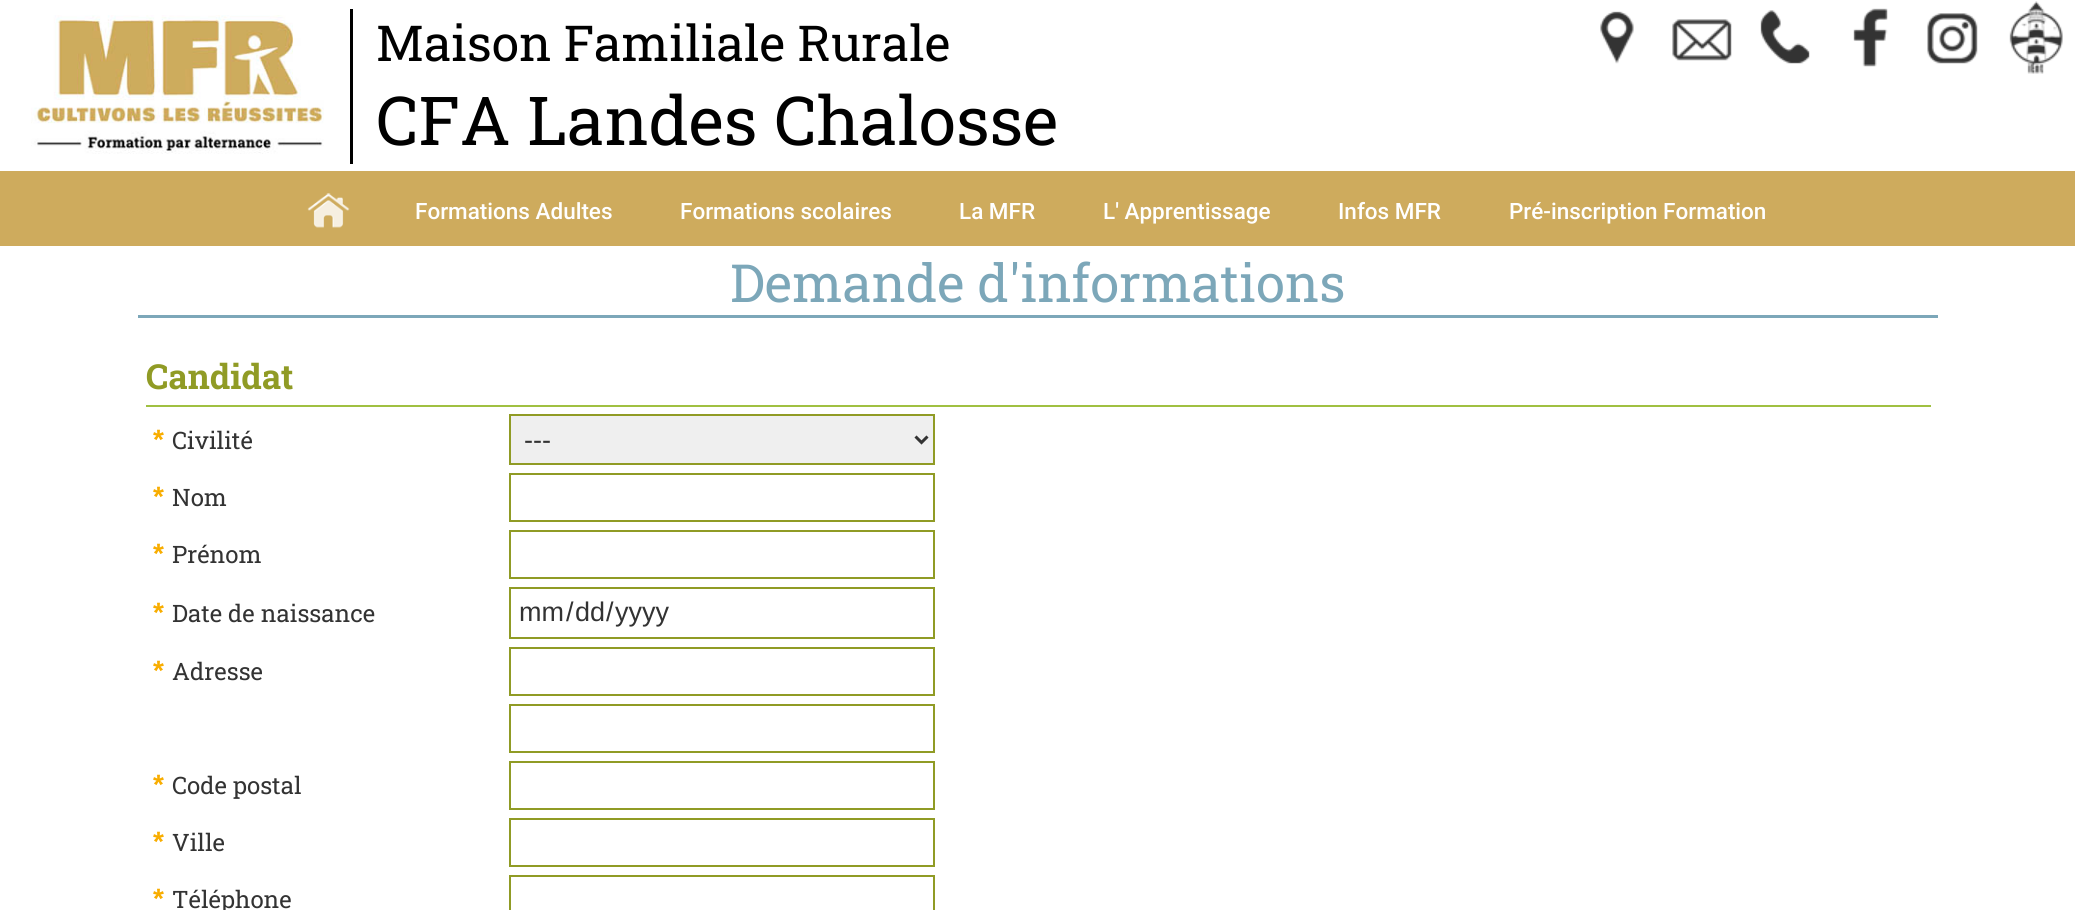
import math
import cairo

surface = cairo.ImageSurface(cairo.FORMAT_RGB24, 2075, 910)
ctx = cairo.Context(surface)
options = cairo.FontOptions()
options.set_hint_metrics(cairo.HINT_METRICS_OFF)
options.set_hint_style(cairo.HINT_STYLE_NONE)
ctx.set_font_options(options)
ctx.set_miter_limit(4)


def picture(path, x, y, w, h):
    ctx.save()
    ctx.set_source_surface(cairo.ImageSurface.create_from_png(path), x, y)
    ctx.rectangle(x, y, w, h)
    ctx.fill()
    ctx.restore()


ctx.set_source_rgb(1, 1, 1)
ctx.paint()
picture("img1.png", 31, 15, 293, 139)
ctx.set_source_rgb(0, 0, 0)
ctx.rectangle(350, 9, 3, 155)
ctx.fill()
ctx.select_font_face("Roboto Slab")
ctx.set_font_size(49.5)
ctx.move_to(376, 61)
ctx.show_text("Maison Familiale Rurale")
ctx.set_font_size(67.5)
ctx.move_to(376, 145)
ctx.show_text("CFA Landes Chalosse")
picture("img2.png", 1600, 11, 34, 53)
picture("img3.png", 1672, 19, 60, 42)
picture("img4.png", 1760, 10, 50, 54)
picture("img5.png", 1853, 8, 35, 59)
picture("img6.png", 1927, 13, 51, 51)
picture("img7.png", 2009, 1, 54, 73)
ctx.set_source_rgb(0.808, 0.671, 0.365)
ctx.rectangle(0, 171, 2075, 75)
ctx.fill()
picture("img8.png", 307, 193, 43, 35)
ctx.select_font_face("Roboto Medium")
ctx.set_font_size(22.5)
ctx.set_source_rgb(1, 1, 1)
ctx.move_to(415, 219)
ctx.show_text("Formations Adultes")
ctx.move_to(680, 219)
ctx.show_text("Formations scolaires")
ctx.move_to(959, 219)
ctx.show_text("La MFR")
ctx.move_to(1103, 219)
ctx.show_text("L' Apprentissage")
ctx.move_to(1338, 219)
ctx.show_text("Infos MFR")
ctx.move_to(1509, 219)
ctx.show_text("Pré-inscription Formation")
ctx.set_source_rgb(0.486, 0.655, 0.725)
ctx.rectangle(138, 315, 1800, 3)
ctx.fill()
ctx.select_font_face("Roboto Slab")
ctx.set_font_size(52.5)
ctx.move_to(730, 302)
ctx.show_text("Demande d'informations")
ctx.select_font_face("Roboto Slab", cairo.FONT_SLANT_NORMAL, cairo.FONT_WEIGHT_BOLD)
ctx.set_font_size(34.5)
ctx.set_source_rgb(0.565, 0.608, 0.145)
ctx.move_to(146, 389)
ctx.show_text("Candidat")
ctx.set_source_rgb(0.627, 0.753, 0.255)
ctx.rectangle(146, 405, 1785, 2)
ctx.fill()
ctx.select_font_face("Liberation Sans", cairo.FONT_SLANT_NORMAL, cairo.FONT_WEIGHT_BOLD)
ctx.set_font_size(28)
ctx.set_source_rgb(0.969, 0.678, 0)
ctx.move_to(153, 449)
ctx.show_text("*")
ctx.select_font_face("Roboto Slab")
ctx.set_font_size(24)
ctx.set_source_rgb(0.2, 0.2, 0.2)
ctx.move_to(172, 449)
ctx.show_text("Civilité")
ctx.set_source_rgb(0.937, 0.937, 0.937)
ctx.rectangle(510, 415, 424, 49)
ctx.fill_preserve()
ctx.set_source_rgb(0.565, 0.608, 0.145)
ctx.stroke()
ctx.new_path()
ctx.move_to(915.5, 436.5)
ctx.line_to(921.5, 442.5)
ctx.line_to(927.5, 436.5)
ctx.set_source_rgb(0.2, 0.2, 0.2)
ctx.set_line_width(3)
ctx.stroke()
ctx.select_font_face("Liberation Sans")
ctx.set_font_size(27)
ctx.move_to(524, 449)
ctx.show_text("---")
ctx.select_font_face("Liberation Sans", cairo.FONT_SLANT_NORMAL, cairo.FONT_WEIGHT_BOLD)
ctx.set_font_size(28)
ctx.set_source_rgb(0.969, 0.678, 0)
ctx.move_to(153, 506)
ctx.show_text("*")
ctx.select_font_face("Roboto Slab")
ctx.set_font_size(24)
ctx.set_source_rgb(0.2, 0.2, 0.2)
ctx.move_to(172, 506)
ctx.show_text("Nom")
ctx.rectangle(510, 474, 424, 47)
ctx.set_source_rgb(0.565, 0.608, 0.145)
ctx.set_line_width(2)
ctx.stroke()
ctx.select_font_face("Liberation Sans", cairo.FONT_SLANT_NORMAL, cairo.FONT_WEIGHT_BOLD)
ctx.set_font_size(28)
ctx.set_source_rgb(0.969, 0.678, 0)
ctx.move_to(153, 563)
ctx.show_text("*")
ctx.select_font_face("Roboto Slab")
ctx.set_font_size(24)
ctx.set_source_rgb(0.2, 0.2, 0.2)
ctx.move_to(172, 563)
ctx.show_text("Prénom")
ctx.rectangle(510, 531, 424, 47)
ctx.set_source_rgb(0.565, 0.608, 0.145)
ctx.stroke()
ctx.select_font_face("Liberation Sans", cairo.FONT_SLANT_NORMAL, cairo.FONT_WEIGHT_BOLD)
ctx.set_font_size(28)
ctx.set_source_rgb(0.969, 0.678, 0)
ctx.move_to(153, 622)
ctx.show_text("*")
ctx.select_font_face("Roboto Slab")
ctx.set_font_size(24)
ctx.set_source_rgb(0.2, 0.2, 0.2)
ctx.move_to(172, 622)
ctx.show_text("Date de naissance")
ctx.rectangle(510, 588, 424, 50)
ctx.set_source_rgb(0.565, 0.608, 0.145)
ctx.stroke()
ctx.select_font_face("Liberation Sans")
ctx.set_font_size(27)
ctx.set_source_rgb(0.2, 0.2, 0.2)
ctx.move_to(519, 621)
ctx.show_text("mm")
ctx.move_to(566, 621)
ctx.show_text("/")
ctx.move_to(575, 621)
ctx.show_text("dd")
ctx.move_to(606, 621)
ctx.show_text("/")
ctx.move_to(615, 621)
ctx.show_text("yyyy")
ctx.select_font_face("Liberation Sans", cairo.FONT_SLANT_NORMAL, cairo.FONT_WEIGHT_BOLD)
ctx.set_font_size(28)
ctx.set_source_rgb(0.969, 0.678, 0)
ctx.move_to(153, 680)
ctx.show_text("*")
ctx.select_font_face("Roboto Slab")
ctx.set_font_size(24)
ctx.set_source_rgb(0.2, 0.2, 0.2)
ctx.move_to(172, 680)
ctx.show_text("Adresse")
ctx.rectangle(510, 648, 424, 47)
ctx.set_source_rgb(0.565, 0.608, 0.145)
ctx.stroke()
ctx.rectangle(510, 705, 424, 47)
ctx.stroke()
ctx.select_font_face("Liberation Sans", cairo.FONT_SLANT_NORMAL, cairo.FONT_WEIGHT_BOLD)
ctx.set_font_size(28)
ctx.set_source_rgb(0.969, 0.678, 0)
ctx.move_to(153, 794)
ctx.show_text("*")
ctx.select_font_face("Roboto Slab")
ctx.set_font_size(24)
ctx.set_source_rgb(0.2, 0.2, 0.2)
ctx.move_to(172, 794)
ctx.show_text("Code postal")
ctx.rectangle(510, 762, 424, 47)
ctx.set_source_rgb(0.565, 0.608, 0.145)
ctx.stroke()
ctx.select_font_face("Liberation Sans", cairo.FONT_SLANT_NORMAL, cairo.FONT_WEIGHT_BOLD)
ctx.set_font_size(28)
ctx.set_source_rgb(0.969, 0.678, 0)
ctx.move_to(153, 851)
ctx.show_text("*")
ctx.select_font_face("Roboto Slab")
ctx.set_font_size(24)
ctx.set_source_rgb(0.2, 0.2, 0.2)
ctx.move_to(172, 851)
ctx.show_text("Ville")
ctx.rectangle(510, 819, 424, 47)
ctx.set_source_rgb(0.565, 0.608, 0.145)
ctx.stroke()
ctx.select_font_face("Liberation Sans", cairo.FONT_SLANT_NORMAL, cairo.FONT_WEIGHT_BOLD)
ctx.set_font_size(28)
ctx.set_source_rgb(0.969, 0.678, 0)
ctx.move_to(153, 908)
ctx.show_text("*")
ctx.select_font_face("Roboto Slab")
ctx.set_font_size(24)
ctx.set_source_rgb(0.2, 0.2, 0.2)
ctx.move_to(172, 908)
ctx.show_text("Téléphone")
ctx.rectangle(510, 876, 424, 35)
ctx.set_source_rgb(0.565, 0.608, 0.145)
ctx.stroke()
surface.write_to_png("page.png")
